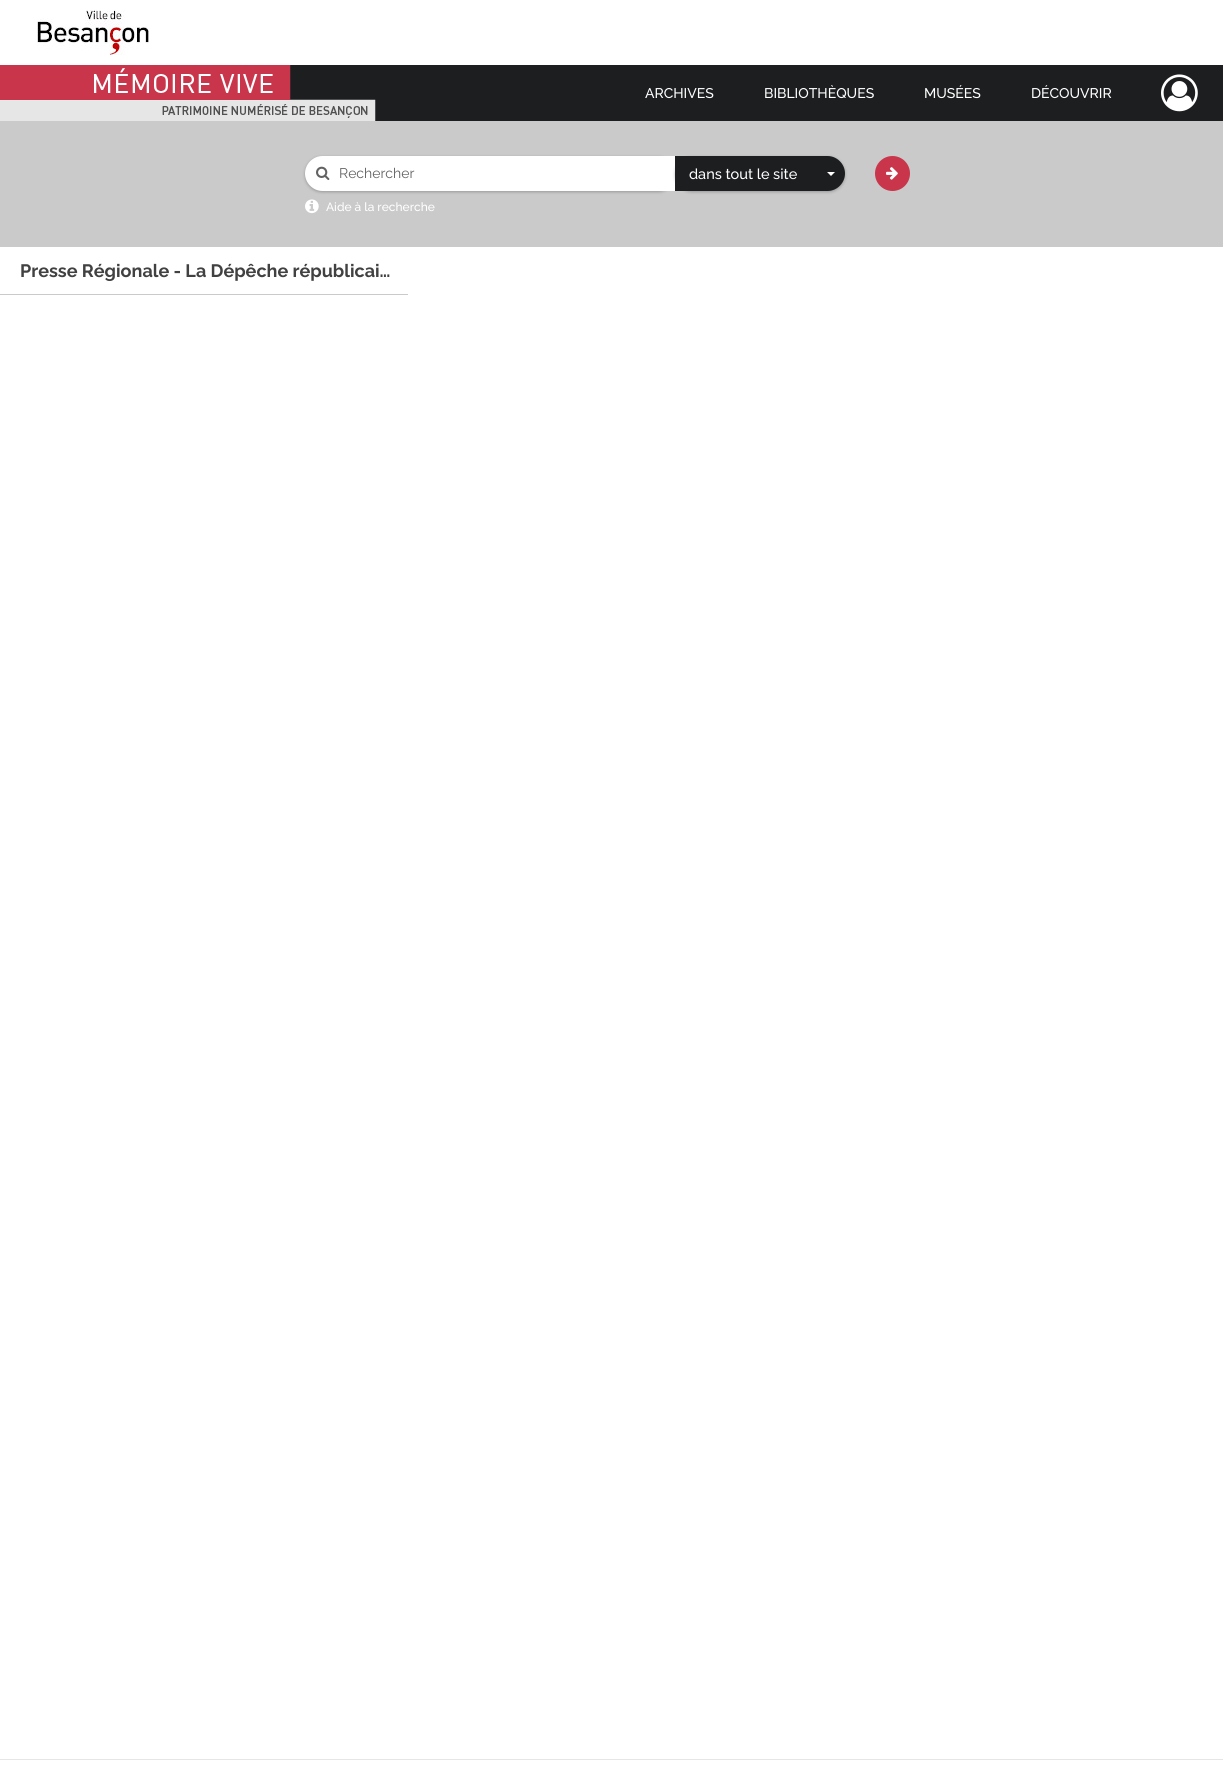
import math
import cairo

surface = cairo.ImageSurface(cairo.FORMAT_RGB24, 1223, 1768)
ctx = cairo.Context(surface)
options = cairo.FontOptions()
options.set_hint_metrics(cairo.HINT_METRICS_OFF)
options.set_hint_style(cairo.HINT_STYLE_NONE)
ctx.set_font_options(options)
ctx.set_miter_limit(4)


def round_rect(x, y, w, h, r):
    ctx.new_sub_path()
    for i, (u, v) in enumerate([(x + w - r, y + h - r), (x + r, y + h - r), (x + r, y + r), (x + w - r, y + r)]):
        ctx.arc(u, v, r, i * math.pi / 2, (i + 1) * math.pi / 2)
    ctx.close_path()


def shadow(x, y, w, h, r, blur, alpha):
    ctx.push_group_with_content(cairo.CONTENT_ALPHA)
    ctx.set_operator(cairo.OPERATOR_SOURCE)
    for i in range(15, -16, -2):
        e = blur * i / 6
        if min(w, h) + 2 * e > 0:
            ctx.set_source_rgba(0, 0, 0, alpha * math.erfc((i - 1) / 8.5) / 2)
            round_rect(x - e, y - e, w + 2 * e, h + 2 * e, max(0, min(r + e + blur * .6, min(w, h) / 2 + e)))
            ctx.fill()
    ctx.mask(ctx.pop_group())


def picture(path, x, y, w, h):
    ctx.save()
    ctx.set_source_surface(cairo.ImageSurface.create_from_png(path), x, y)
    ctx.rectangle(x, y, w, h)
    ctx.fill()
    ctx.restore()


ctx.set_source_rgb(1, 1, 1)
ctx.paint()
picture("img1.png", 37, 10, 112, 45)
ctx.set_source_rgb(0.11, 0.118, 0.125)
ctx.rectangle(290, 65, 933, 56)
ctx.fill()
picture("img2.png", 0, 65, 376, 56)
ctx.select_font_face("Raleway Medium")
ctx.set_font_size(14)
ctx.set_source_rgb(1, 1, 1)
ctx.move_to(645, 98)
ctx.show_text("ARCHIVES")
ctx.move_to(764, 98)
ctx.show_text("BIBLIOTHÈQUES")
ctx.move_to(924, 98)
ctx.show_text("MUSÉES")
ctx.move_to(1031, 98)
ctx.show_text("DÉCOUVRIR")
picture("img3.png", 1161, 74, 37, 38)
ctx.set_source_rgb(0.792, 0.792, 0.792)
ctx.rectangle(0, 121, 1223, 126)
ctx.fill()
ctx.set_source_rgb(0, 0, 0)
shadow(305, 157, 370, 35, 17.5, 1.5, 0.25)
ctx.set_source_rgb(1, 1, 1)
ctx.new_path()
ctx.move_to(322.5, 156)
ctx.line_to(675, 156)
ctx.line_to(675, 191)
ctx.line_to(322.5, 191)
ctx.curve_to(313, 191, 305, 183, 305, 173.5)
ctx.curve_to(305, 164, 313, 156, 322.5, 156)
ctx.close_path()
ctx.fill()
picture("img4.png", 316, 166, 14, 14)
ctx.select_font_face("Raleway")
ctx.set_source_rgb(0.384, 0.384, 0.384)
ctx.move_to(339, 178)
ctx.show_text("Rechercher")
ctx.set_source_rgb(0, 0, 0)
shadow(675, 157, 170, 35, 17.5, 1.5, 0.25)
ctx.set_source_rgb(0.11, 0.118, 0.125)
ctx.new_path()
ctx.move_to(675, 156)
ctx.line_to(827.5, 156)
ctx.curve_to(837, 156, 845, 164, 845, 173.5)
ctx.curve_to(845, 183, 837, 191, 827.5, 191)
ctx.line_to(675, 191)
ctx.close_path()
ctx.fill()
ctx.select_font_face("Raleway Medium")
ctx.set_font_size(14.5)
ctx.set_source_rgb(1, 1, 1)
ctx.move_to(689, 179)
ctx.show_text("dans tout le site")
ctx.new_path()
ctx.move_to(827, 172)
ctx.line_to(835, 172)
ctx.line_to(831, 176)
ctx.close_path()
ctx.fill()
ctx.set_source_rgb(0.788, 0.212, 0.294)
ctx.arc(892.5, 173.5, 17.5, 0, 2 * math.pi)
ctx.fill()
picture("img5.png", 886, 167, 12, 13)
picture("img6.png", 305, 199, 14, 15)
ctx.set_font_size(12)
ctx.set_source_rgb(1, 1, 1)
ctx.move_to(326, 211)
ctx.show_text("Aide à la recherche")
ctx.set_source_rgb(0.792, 0.792, 0.792)
ctx.rectangle(0, 294, 408, 1)
ctx.fill()
ctx.select_font_face("Raleway", cairo.FONT_SLANT_NORMAL, cairo.FONT_WEIGHT_BOLD)
ctx.set_font_size(18)
ctx.set_source_rgb(0.255, 0.255, 0.255)
ctx.move_to(20, 277)
ctx.show_text("Presse Régionale - La Dépêche républicai…")
ctx.set_source_rgb(0.902, 0.902, 0.902)
ctx.rectangle(0, 1759, 1223, 1)
ctx.fill()
surface.write_to_png("page.png")
